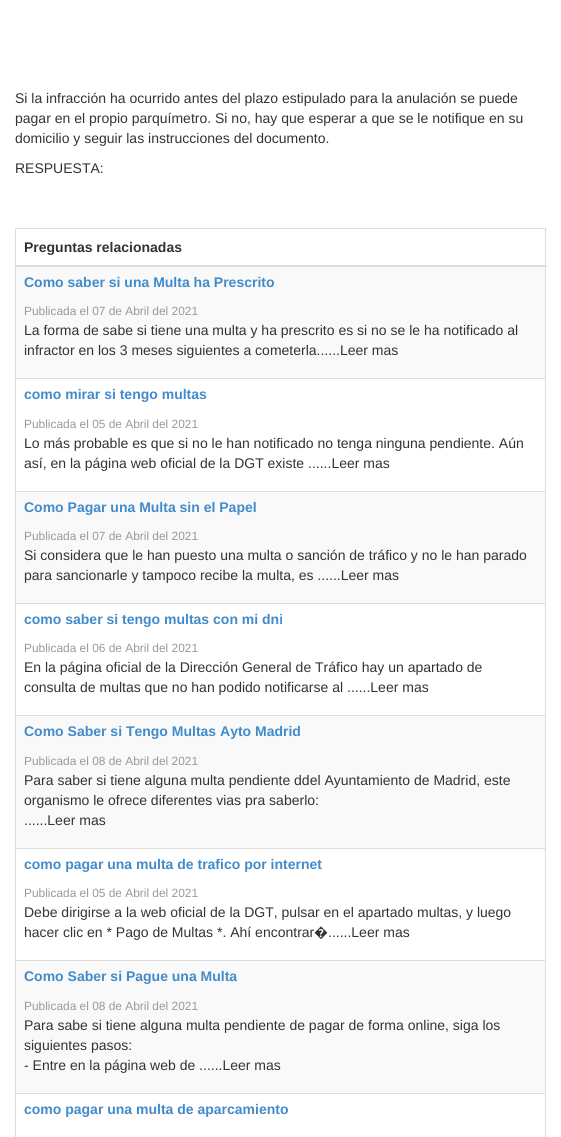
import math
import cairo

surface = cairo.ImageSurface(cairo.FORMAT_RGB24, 561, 1137)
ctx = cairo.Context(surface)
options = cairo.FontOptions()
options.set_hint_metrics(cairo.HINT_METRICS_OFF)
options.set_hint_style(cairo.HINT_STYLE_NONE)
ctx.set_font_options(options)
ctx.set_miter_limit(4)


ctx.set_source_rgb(1, 1, 1)
ctx.paint()
ctx.select_font_face("Liberation Sans")
ctx.set_font_size(14)
ctx.set_source_rgb(0.2, 0.2, 0.2)
ctx.move_to(15, 103)
ctx.show_text("Si la infracción ha ocurrido antes del plazo estipulado para la anulación se puede")
ctx.move_to(15, 123)
ctx.show_text("pagar en el propio parquímetro. Si no, hay que esperar a que se le notifique en su")
ctx.move_to(15, 143)
ctx.show_text("domicilio y seguir las instrucciones del documento.")
ctx.move_to(15, 173)
ctx.show_text("RESPUESTA:")
ctx.set_source_rgb(0.867, 0.867, 0.867)
ctx.rectangle(15, 228, 531, 1)
ctx.fill()
ctx.rectangle(545, 228, 1, 909)
ctx.fill()
ctx.rectangle(15, 228, 1, 909)
ctx.fill()
ctx.rectangle(15, 265, 532, 2)
ctx.fill()
ctx.select_font_face("Liberation Sans", cairo.FONT_SLANT_NORMAL, cairo.FONT_WEIGHT_BOLD)
ctx.set_source_rgb(0.2, 0.2, 0.2)
ctx.move_to(24, 252)
ctx.show_text("Preguntas relacionadas")
ctx.set_source_rgb(0.976, 0.976, 0.976)
ctx.rectangle(16, 267, 529, 111)
ctx.fill()
ctx.set_source_rgb(0.259, 0.545, 0.792)
ctx.move_to(24, 287)
ctx.show_text("Como saber si una Multa ha Prescrito")
ctx.select_font_face("Liberation Sans")
ctx.set_font_size(11.9)
ctx.set_source_rgb(0.6, 0.6, 0.6)
ctx.move_to(24, 315)
ctx.show_text("Publicada el 07 de Abril del 2021")
ctx.set_font_size(14)
ctx.set_source_rgb(0.2, 0.2, 0.2)
ctx.move_to(24, 335)
ctx.show_text("La forma de sabe si tiene una multa y ha prescrito es si no se le ha notificado al")
ctx.move_to(24, 355)
ctx.show_text("infractor en los 3 meses siguientes a cometerla......Leer mas")
ctx.set_source_rgb(0.867, 0.867, 0.867)
ctx.rectangle(15, 378, 531, 1)
ctx.fill()
ctx.select_font_face("Liberation Sans", cairo.FONT_SLANT_NORMAL, cairo.FONT_WEIGHT_BOLD)
ctx.set_source_rgb(0.259, 0.545, 0.792)
ctx.move_to(24, 399)
ctx.show_text("como mirar si tengo multas")
ctx.select_font_face("Liberation Sans")
ctx.set_font_size(11.9)
ctx.set_source_rgb(0.6, 0.6, 0.6)
ctx.move_to(24, 428)
ctx.show_text("Publicada el 05 de Abril del 2021")
ctx.set_font_size(14)
ctx.set_source_rgb(0.2, 0.2, 0.2)
ctx.move_to(24, 448)
ctx.show_text("Lo más probable es que si no le han notificado no tenga ninguna pendiente. Aún")
ctx.move_to(24, 468)
ctx.show_text("así, en la página web oficial de la DGT existe ......Leer mas")
ctx.set_source_rgb(0.976, 0.976, 0.976)
ctx.rectangle(16, 492, 529, 111)
ctx.fill()
ctx.set_source_rgb(0.867, 0.867, 0.867)
ctx.rectangle(15, 491, 531, 1)
ctx.fill()
ctx.select_font_face("Liberation Sans", cairo.FONT_SLANT_NORMAL, cairo.FONT_WEIGHT_BOLD)
ctx.set_source_rgb(0.259, 0.545, 0.792)
ctx.move_to(24, 512)
ctx.show_text("Como Pagar una Multa sin el Papel")
ctx.select_font_face("Liberation Sans")
ctx.set_font_size(11.9)
ctx.set_source_rgb(0.6, 0.6, 0.6)
ctx.move_to(24, 540)
ctx.show_text("Publicada el 07 de Abril del 2021")
ctx.set_font_size(14)
ctx.set_source_rgb(0.2, 0.2, 0.2)
ctx.move_to(24, 560)
ctx.show_text("Si considera que le han puesto una multa o sanción de tráfico y no le han parado")
ctx.move_to(24, 580)
ctx.show_text("para sancionarle y tampoco recibe la multa, es ......Leer mas")
ctx.set_source_rgb(0.867, 0.867, 0.867)
ctx.rectangle(15, 603, 531, 1)
ctx.fill()
ctx.select_font_face("Liberation Sans", cairo.FONT_SLANT_NORMAL, cairo.FONT_WEIGHT_BOLD)
ctx.set_source_rgb(0.259, 0.545, 0.792)
ctx.move_to(24, 624)
ctx.show_text("como saber si tengo multas con mi dni")
ctx.select_font_face("Liberation Sans")
ctx.set_font_size(11.9)
ctx.set_source_rgb(0.6, 0.6, 0.6)
ctx.move_to(24, 652)
ctx.show_text("Publicada el 06 de Abril del 2021")
ctx.set_font_size(14)
ctx.set_source_rgb(0.2, 0.2, 0.2)
ctx.move_to(24, 672)
ctx.show_text("En la página oficial de la Dirección General de Tráfico hay un apartado de")
ctx.move_to(24, 692)
ctx.show_text("consulta de multas que no han podido notificarse al ......Leer mas")
ctx.set_source_rgb(0.976, 0.976, 0.976)
ctx.rectangle(16, 716, 529, 132)
ctx.fill()
ctx.set_source_rgb(0.867, 0.867, 0.867)
ctx.rectangle(15, 715, 531, 1)
ctx.fill()
ctx.select_font_face("Liberation Sans", cairo.FONT_SLANT_NORMAL, cairo.FONT_WEIGHT_BOLD)
ctx.set_source_rgb(0.259, 0.545, 0.792)
ctx.move_to(24, 736)
ctx.show_text("Como Saber si Tengo Multas Ayto Madrid")
ctx.select_font_face("Liberation Sans")
ctx.set_font_size(11.9)
ctx.set_source_rgb(0.6, 0.6, 0.6)
ctx.move_to(24, 765)
ctx.show_text("Publicada el 08 de Abril del 2021")
ctx.set_font_size(14)
ctx.set_source_rgb(0.2, 0.2, 0.2)
ctx.move_to(24, 785)
ctx.show_text("Para saber si tiene alguna multa pendiente ddel Ayuntamiento de Madrid, este")
ctx.move_to(24, 805)
ctx.show_text("organismo le ofrece diferentes vias pra saberlo:")
ctx.move_to(24, 825)
ctx.show_text("......Leer mas")
ctx.set_source_rgb(0.867, 0.867, 0.867)
ctx.rectangle(15, 848, 531, 1)
ctx.fill()
ctx.select_font_face("Liberation Sans", cairo.FONT_SLANT_NORMAL, cairo.FONT_WEIGHT_BOLD)
ctx.set_source_rgb(0.259, 0.545, 0.792)
ctx.move_to(24, 869)
ctx.show_text("como pagar una multa de trafico por internet")
ctx.select_font_face("Liberation Sans")
ctx.set_font_size(11.9)
ctx.set_source_rgb(0.6, 0.6, 0.6)
ctx.move_to(24, 897)
ctx.show_text("Publicada el 05 de Abril del 2021")
ctx.set_font_size(14)
ctx.set_source_rgb(0.2, 0.2, 0.2)
ctx.move_to(24, 917)
ctx.show_text("Debe dirigirse a la web oficial de la DGT, pulsar en el apartado multas, y luego")
ctx.move_to(24, 937)
ctx.show_text("hacer clic en * Pago de Multas *. Ahí encontrar")
ctx.select_font_face("Noto Sans")
ctx.move_to(314, 937)
ctx.show_text("�")
ctx.select_font_face("Liberation Sans")
ctx.move_to(328, 937)
ctx.show_text("......Leer mas")
ctx.set_source_rgb(0.976, 0.976, 0.976)
ctx.rectangle(16, 961, 529, 132)
ctx.fill()
ctx.set_source_rgb(0.867, 0.867, 0.867)
ctx.rectangle(15, 960, 531, 1)
ctx.fill()
ctx.select_font_face("Liberation Sans", cairo.FONT_SLANT_NORMAL, cairo.FONT_WEIGHT_BOLD)
ctx.set_source_rgb(0.259, 0.545, 0.792)
ctx.move_to(24, 981)
ctx.show_text("Como Saber si Pague una Multa")
ctx.select_font_face("Liberation Sans")
ctx.set_font_size(11.9)
ctx.set_source_rgb(0.6, 0.6, 0.6)
ctx.move_to(24, 1010)
ctx.show_text("Publicada el 08 de Abril del 2021")
ctx.set_font_size(14)
ctx.set_source_rgb(0.2, 0.2, 0.2)
ctx.move_to(24, 1030)
ctx.show_text("Para sabe si tiene alguna multa pendiente de pagar de forma online, siga los")
ctx.move_to(24, 1050)
ctx.show_text("siguientes pasos:")
ctx.move_to(24, 1070)
ctx.show_text("- Entre en la página web de ......Leer mas")
ctx.set_source_rgb(0.867, 0.867, 0.867)
ctx.rectangle(15, 1093, 531, 1)
ctx.fill()
ctx.select_font_face("Liberation Sans", cairo.FONT_SLANT_NORMAL, cairo.FONT_WEIGHT_BOLD)
ctx.set_source_rgb(0.259, 0.545, 0.792)
ctx.move_to(24, 1114)
ctx.show_text("como pagar una multa de aparcamiento")
surface.write_to_png("page.png")
